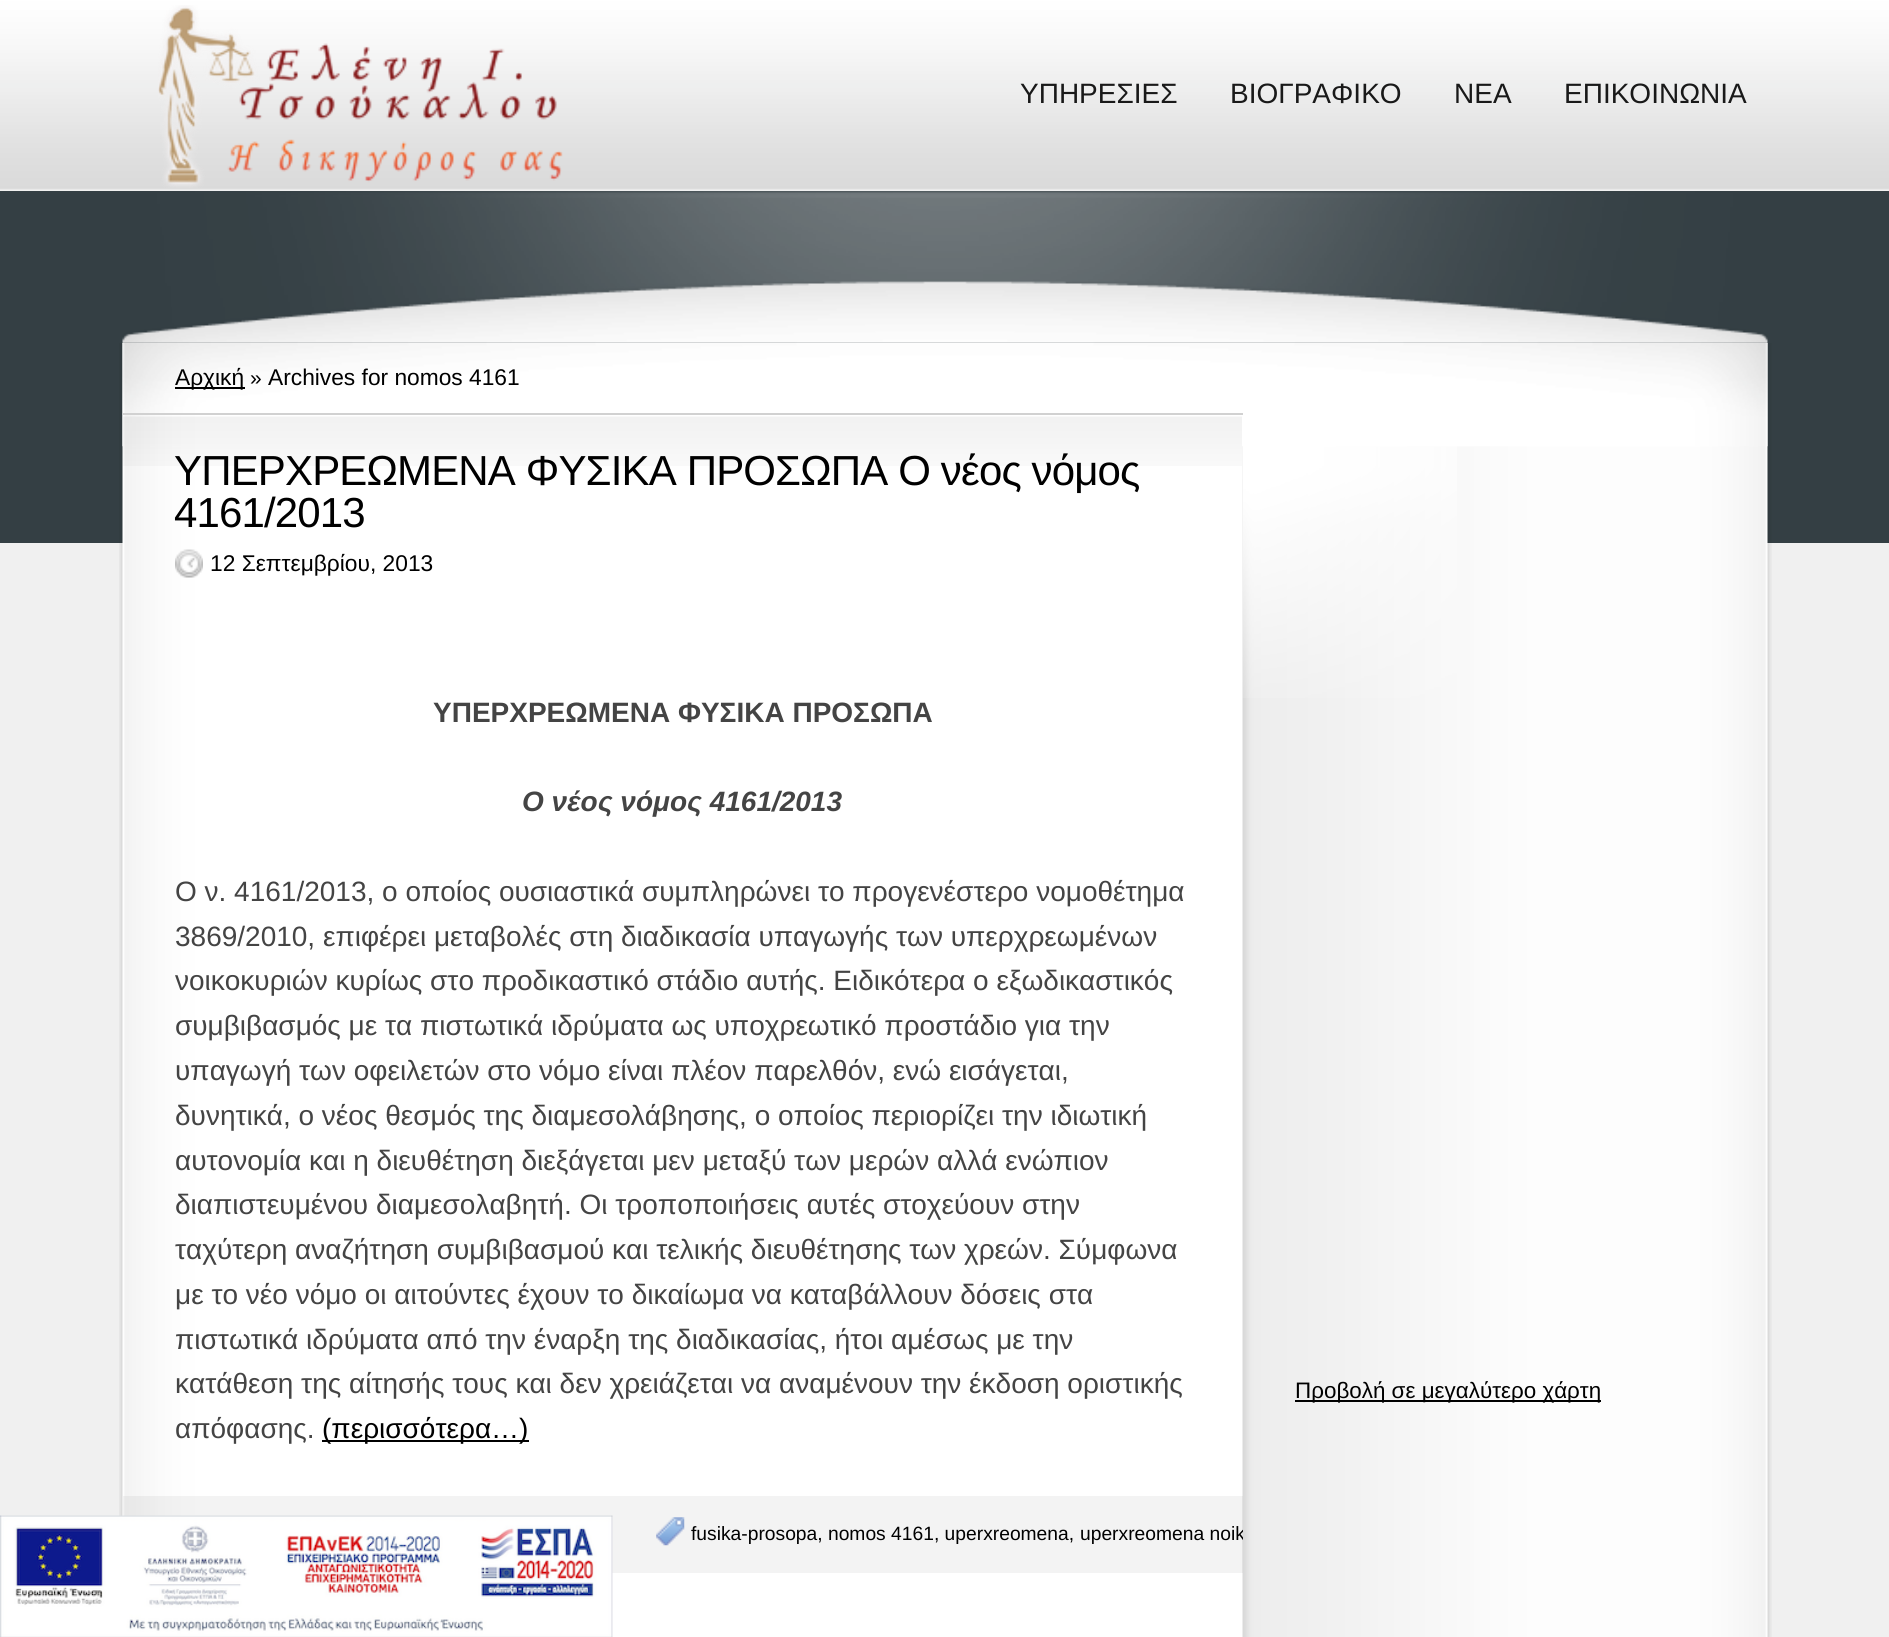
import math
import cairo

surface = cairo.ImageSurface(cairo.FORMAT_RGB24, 1889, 1637)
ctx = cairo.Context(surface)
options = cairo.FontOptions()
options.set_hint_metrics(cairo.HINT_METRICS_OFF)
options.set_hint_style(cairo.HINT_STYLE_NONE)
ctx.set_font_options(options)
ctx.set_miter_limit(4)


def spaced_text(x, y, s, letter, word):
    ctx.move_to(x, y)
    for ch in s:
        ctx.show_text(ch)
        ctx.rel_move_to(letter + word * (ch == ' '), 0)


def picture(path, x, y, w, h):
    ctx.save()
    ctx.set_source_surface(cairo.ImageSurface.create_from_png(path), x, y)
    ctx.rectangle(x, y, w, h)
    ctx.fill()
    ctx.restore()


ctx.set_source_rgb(0.941, 0.941, 0.941)
ctx.paint()
picture("img1.png", 0, 0, 1889, 190)
picture("img2.png", 158, 5, 405, 183)
ctx.select_font_face("Liberation Sans")
ctx.set_font_size(28)
ctx.set_source_rgb(0.098, 0.098, 0.098)
ctx.move_to(1020, 103)
ctx.show_text("ΥΠΗΡΕΣΙΕΣ")
ctx.move_to(1230, 103)
ctx.show_text("ΒΙΟΓΡΑΦΙΚΟ")
ctx.move_to(1454, 103)
ctx.show_text("ΝΕΑ")
ctx.move_to(1564, 103)
ctx.show_text("ΕΠΙΚΟΙΝΩΝΙΑ")
ctx.set_source_rgb(0.204, 0.247, 0.267)
ctx.rectangle(0, 191, 1889, 352)
ctx.fill()
picture("img3.png", 122, 191, 1646, 153)
picture("img4.png", 119, 343, 1653, 1294)
picture("img5.png", 122, 343, 1646, 104)
ctx.set_source_rgb(0, 0, 0)
ctx.rectangle(175, 387, 70, 2)
ctx.fill()
ctx.set_font_size(22.75)
ctx.move_to(175, 385)
ctx.show_text("Αρχική")
ctx.set_font_size(21)
ctx.move_to(250, 385)
ctx.show_text("»")
ctx.set_font_size(22.75)
ctx.move_to(268, 385)
ctx.show_text("Archives for nomos 4161")
picture("img6.png", 123, 416, 1119, 50)
ctx.set_source_rgb(0.82, 0.82, 0.82)
ctx.rectangle(123, 413, 1120, 2)
ctx.fill()
ctx.set_font_size(42)
ctx.set_source_rgb(0, 0, 0)
spaced_text(174, 485, "ΥΠΕΡΧΡΕΩΜΕΝΑ ΦΥΣΙΚΑ ΠΡΟΣΩΠΑ Ο νέος νόμος", -0.85, 0)
spaced_text(174, 527, "4161/2013", -0.85, 0)
picture("img7.png", 175, 549, 28, 29)
ctx.set_font_size(22.75)
ctx.move_to(210, 571)
ctx.show_text("12 Σεπτεμβρίου, 2013")
ctx.select_font_face("Liberation Sans", cairo.FONT_SLANT_NORMAL, cairo.FONT_WEIGHT_BOLD)
ctx.set_font_size(28)
ctx.set_source_rgb(0.267, 0.267, 0.267)
ctx.move_to(433, 722)
ctx.show_text("ΥΠΕΡΧΡΕΩΜΕΝΑ ΦΥΣΙΚΑ ΠΡΟΣΩΠΑ")
ctx.select_font_face("Liberation Sans", cairo.FONT_SLANT_ITALIC, cairo.FONT_WEIGHT_BOLD)
ctx.move_to(522, 811)
ctx.show_text("Ο νέος νόμος 4161/2013")
ctx.select_font_face("Liberation Sans")
ctx.move_to(175, 901)
ctx.show_text("Ο ν. 4161/2013, ο οποίος ουσιαστικά συμπληρώνει το προγενέστερο νομοθέτημα")
ctx.move_to(175, 946)
ctx.show_text("3869/2010, επιφέρει μεταβολές στη διαδικασία υπαγωγής των υπερχρεωμένων")
ctx.move_to(175, 990)
ctx.show_text("νοικοκυριών κυρίως στο προδικαστικό στάδιο αυτής. Ειδικότερα ο εξωδικαστικός")
ctx.move_to(175, 1035)
ctx.show_text("συμβιβασμός με τα πιστωτικά ιδρύματα ως υποχρεωτικό προστάδιο για την")
ctx.move_to(175, 1080)
ctx.show_text("υπαγωγή των οφειλετών στο νόμο είναι πλέον παρελθόν, ενώ εισάγεται,")
ctx.move_to(175, 1125)
ctx.show_text("δυνητικά, ο νέος θεσμός της διαμεσολάβησης, ο οποίος περιορίζει την ιδιωτική")
ctx.move_to(175, 1170)
ctx.show_text("αυτονομία και η διευθέτηση διεξάγεται μεν μεταξύ των μερών αλλά ενώπιον")
ctx.move_to(175, 1214)
ctx.show_text("διαπιστευμένου διαμεσολαβητή. Οι τροποποιήσεις αυτές στοχεύουν στην")
ctx.move_to(175, 1259)
ctx.show_text("ταχύτερη αναζήτηση συμβιβασμού και τελικής διευθέτησης των χρεών. Σύμφωνα")
ctx.move_to(175, 1304)
ctx.show_text("με το νέο νόμο οι αιτούντες έχουν το δικαίωμα να καταβάλλουν δόσεις στα")
ctx.move_to(175, 1349)
ctx.show_text("πιστωτικά ιδρύματα από την έναρξη της διαδικασίας, ήτοι αμέσως με την")
ctx.move_to(175, 1393)
ctx.show_text("κατάθεση της αίτησής τους και δεν χρειάζεται να αναμένουν την έκδοση οριστικής")
ctx.move_to(175, 1438)
ctx.show_text("απόφασης.")
ctx.set_source_rgb(0, 0, 0)
ctx.rectangle(322, 1440, 207, 2)
ctx.fill()
ctx.move_to(322, 1438)
ctx.show_text("(περισσότερα…)")
ctx.set_source_rgba(0, 0, 0, 0.05)
ctx.rectangle(123, 1496, 1120, 77)
ctx.fill()
picture("img8.png", 656, 1517, 29, 29)
ctx.set_font_size(19.25)
ctx.set_source_rgb(0, 0, 0)
ctx.move_to(691, 1540)
ctx.show_text("fusika-prosopa, nomos 4161, uperxreomena,")
ctx.save()
ctx.rectangle(123, 415, 1120, 1158)
ctx.clip()
ctx.move_to(1080, 1540)
ctx.show_text("uperxreomena noik")
ctx.restore()
picture("img9.png", 1242, 446, 215, 252)
ctx.rectangle(1295, 1400, 306, 2)
ctx.fill()
ctx.set_font_size(22.4)
ctx.move_to(1295, 1398)
ctx.show_text("Προβολή σε μεγαλύτερο χάρτη")
picture("img10.png", 0, 1515, 613, 122)
surface.write_to_png("page.png")
